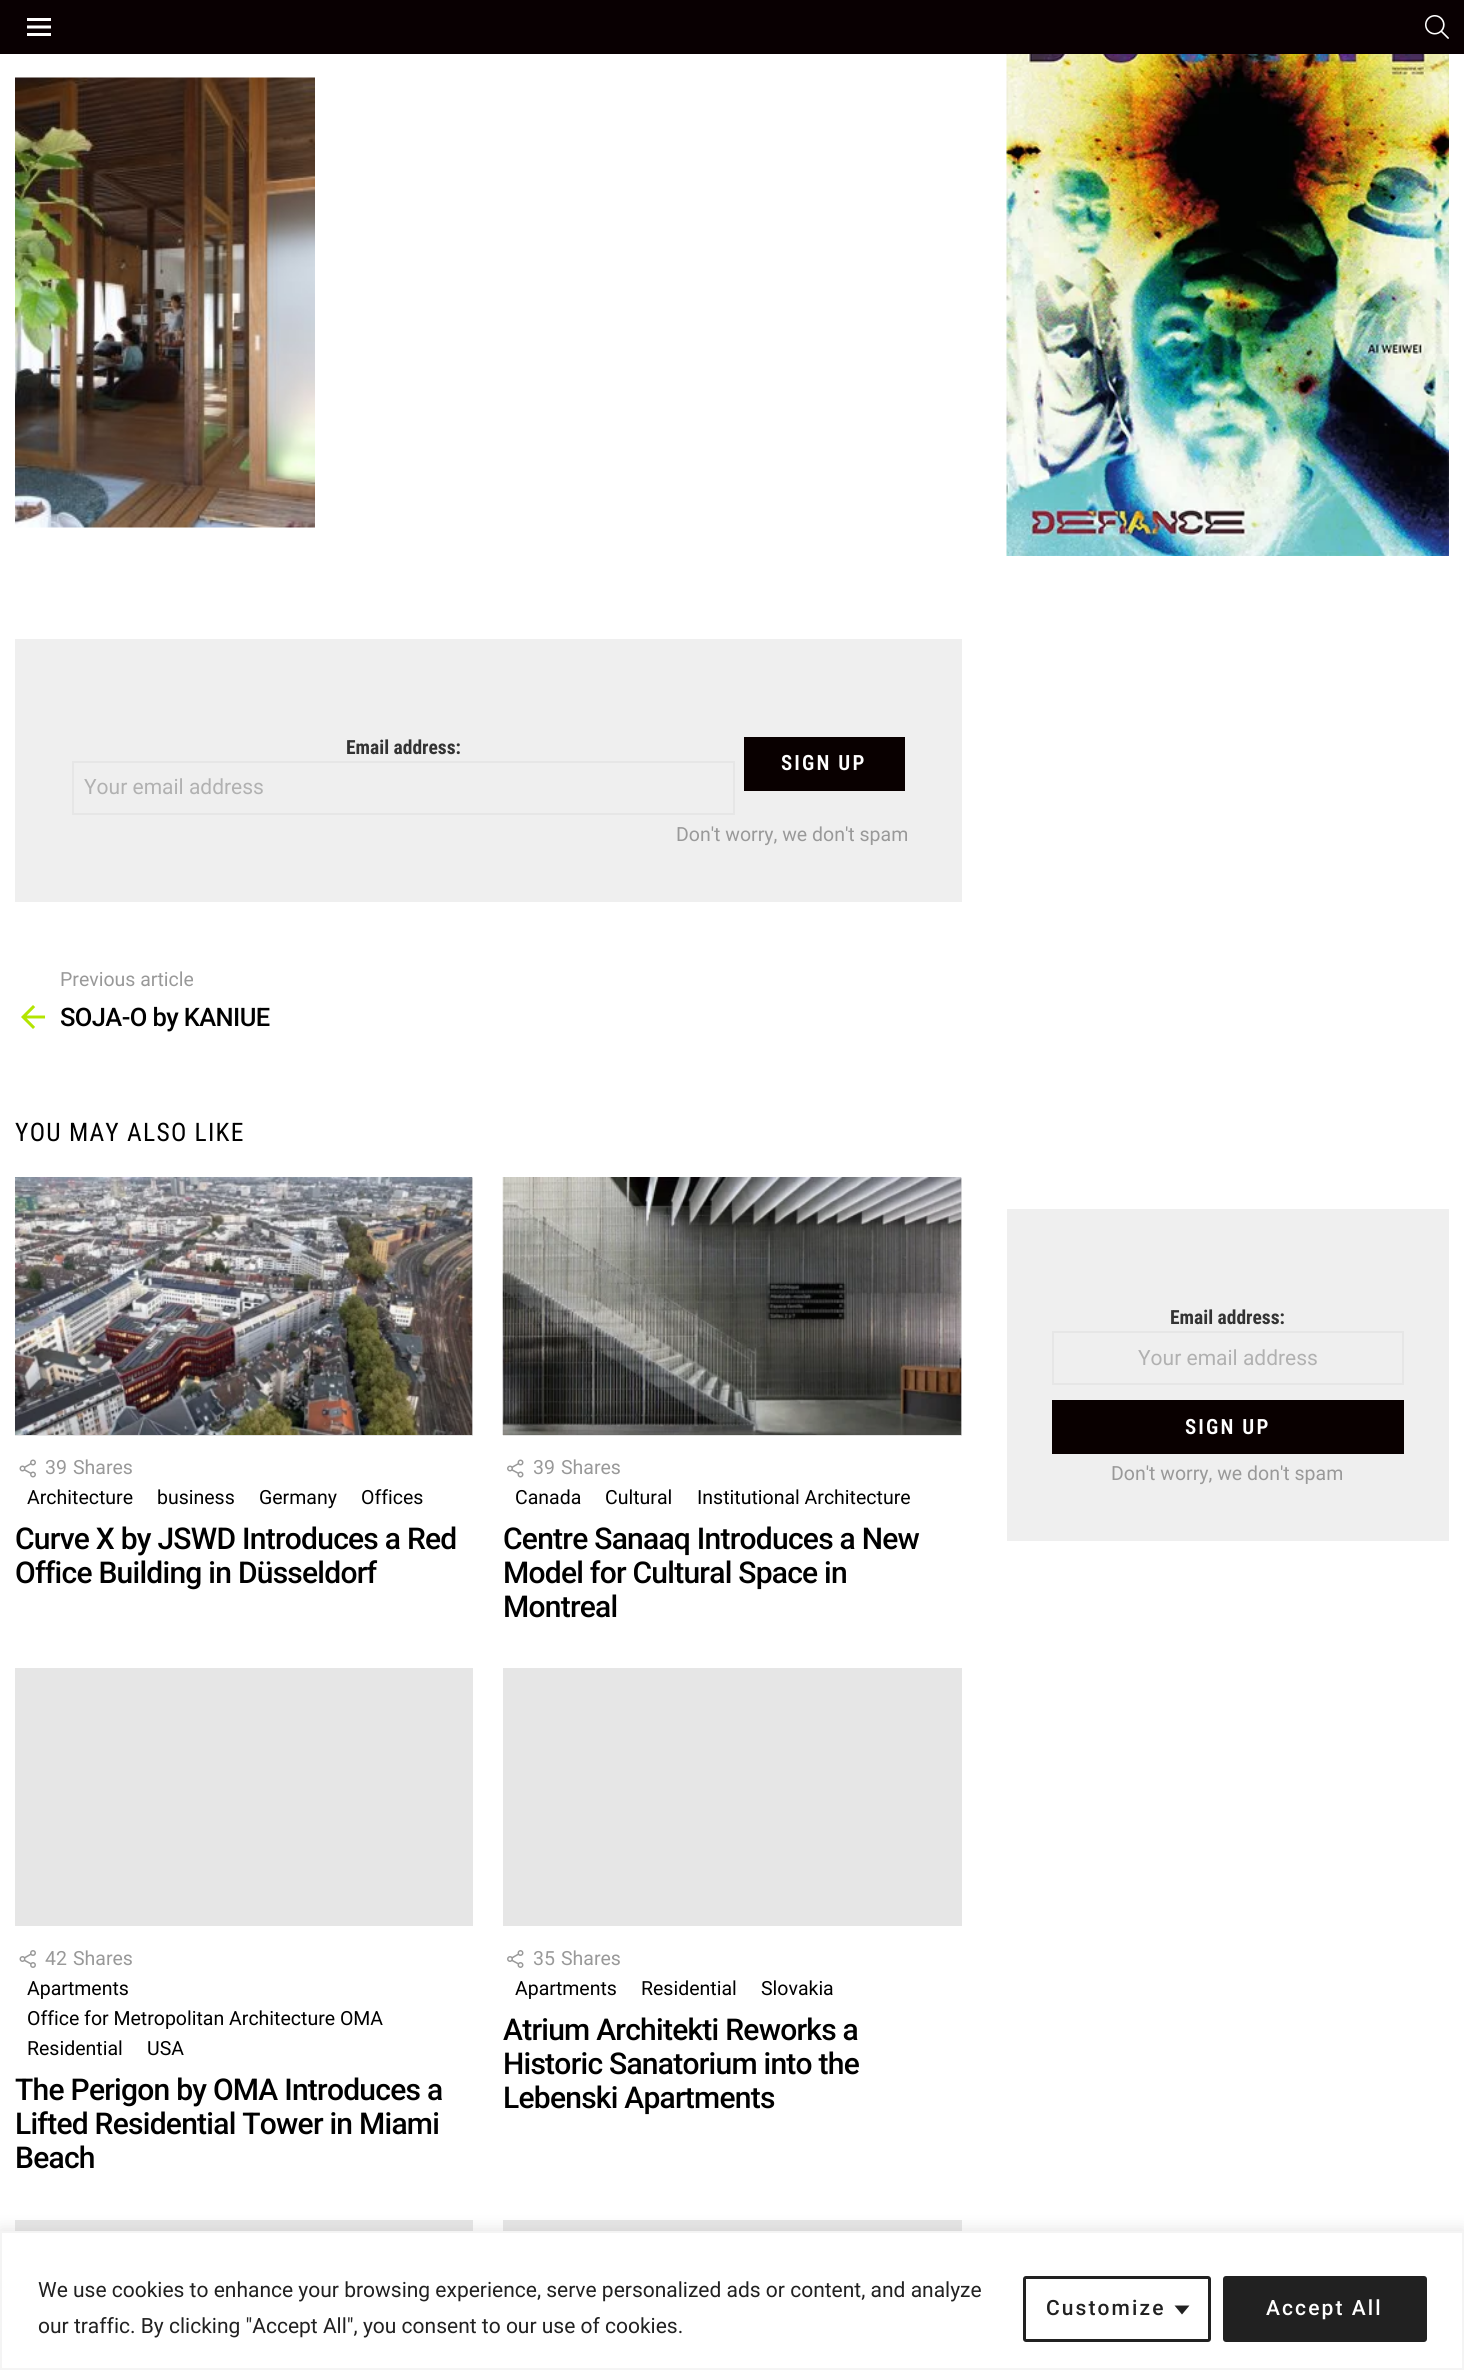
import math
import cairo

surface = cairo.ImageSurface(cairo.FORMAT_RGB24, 1464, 2370)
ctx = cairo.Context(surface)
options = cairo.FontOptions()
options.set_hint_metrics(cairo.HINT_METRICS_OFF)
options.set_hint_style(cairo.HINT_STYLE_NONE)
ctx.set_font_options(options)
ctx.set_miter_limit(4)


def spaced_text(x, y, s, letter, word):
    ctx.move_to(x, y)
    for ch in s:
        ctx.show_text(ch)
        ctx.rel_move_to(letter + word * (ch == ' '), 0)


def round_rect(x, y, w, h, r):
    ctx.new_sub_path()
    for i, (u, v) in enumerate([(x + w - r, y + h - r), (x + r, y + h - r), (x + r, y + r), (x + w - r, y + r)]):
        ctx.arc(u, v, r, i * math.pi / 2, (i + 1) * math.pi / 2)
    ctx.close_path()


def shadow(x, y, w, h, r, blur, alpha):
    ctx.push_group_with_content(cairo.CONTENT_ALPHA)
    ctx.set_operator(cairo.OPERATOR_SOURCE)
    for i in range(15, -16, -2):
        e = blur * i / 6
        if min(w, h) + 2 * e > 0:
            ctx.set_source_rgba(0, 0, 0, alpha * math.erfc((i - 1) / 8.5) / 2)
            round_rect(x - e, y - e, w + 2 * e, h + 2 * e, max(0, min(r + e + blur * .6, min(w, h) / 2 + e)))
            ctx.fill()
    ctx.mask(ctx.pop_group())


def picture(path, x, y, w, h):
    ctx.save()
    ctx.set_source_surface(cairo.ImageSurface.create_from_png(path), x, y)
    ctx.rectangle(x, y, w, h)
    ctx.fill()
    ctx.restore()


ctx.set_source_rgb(1, 1, 1)
ctx.paint()
ctx.set_source_rgb(0.039, 0, 0.008)
ctx.rectangle(0, 0, 1464, 54)
ctx.fill()
picture("img1.png", 27, 18, 24, 18)
picture("img2.png", 1425, 15, 24, 24)
picture("img3.png", 15, 77, 300, 451)
ctx.set_source_rgb(0.937, 0.937, 0.937)
ctx.rectangle(15, 639, 947, 263)
ctx.fill()
ctx.select_font_face("Roboto Condensed", cairo.FONT_SLANT_NORMAL, cairo.FONT_WEIGHT_BOLD)
ctx.set_font_size(19.5)
ctx.set_source_rgb(0.2, 0.2, 0.2)
ctx.move_to(346, 754)
ctx.show_text("Email address:")
ctx.rectangle(73, 762, 661, 52)
ctx.set_source_rgb(0.902, 0.902, 0.902)
ctx.stroke()
ctx.select_font_face("Roboto")
ctx.set_font_size(21)
ctx.set_source_rgb(0.694, 0.694, 0.694)
ctx.move_to(84, 794)
ctx.show_text("Your email address")
ctx.set_source_rgb(0.039, 0, 0)
ctx.rectangle(744, 737, 161, 54)
ctx.fill()
ctx.select_font_face("Roboto Condensed SemiBold")
ctx.set_source_rgb(1, 1, 1)
spaced_text(781, 770, "SIGN UP", 2.1, 0)
ctx.select_font_face("Roboto")
ctx.set_font_size(19.5)
ctx.set_source_rgb(0.6, 0.6, 0.6)
ctx.move_to(676, 841)
ctx.show_text("Don't worry, we don't spam")
ctx.move_to(60, 986)
ctx.show_text("Previous article")
picture("img4.png", 21, 1005, 25, 24)
ctx.select_font_face("Roboto Medium")
ctx.set_font_size(25.5)
ctx.set_source_rgb(0, 0, 0)
spaced_text(60, 1026, "SOJA-O by KANIUE", -0.6, 0)
ctx.select_font_face("Roboto Condensed")
spaced_text(15, 1141, "YOU MAY ALSO LIKE", 1.25, 0)
ctx.set_source_rgb(0.902, 0.902, 0.902)
ctx.rectangle(15, 1178, 458, 258)
ctx.fill()
picture("img5.png", 15, 1177, 458, 258)
picture("img6.png", 19, 1459, 17, 19)
ctx.select_font_face("Roboto")
ctx.set_font_size(19.5)
ctx.set_source_rgb(0.6, 0.6, 0.6)
ctx.move_to(45, 1474)
ctx.show_text("39")
ctx.move_to(73, 1474)
ctx.show_text("Shares")
ctx.set_source_rgb(0, 0, 0)
ctx.move_to(27, 1504)
ctx.show_text("Architecture")
ctx.move_to(157, 1504)
ctx.show_text("business")
ctx.move_to(259, 1504)
ctx.show_text("Germany")
ctx.move_to(361, 1504)
ctx.show_text("Offices")
ctx.select_font_face("Roboto Medium")
ctx.set_font_size(30)
spaced_text(15, 1549, "Curve X by JSWD Introduces a Red", -0.75, 0)
spaced_text(15, 1583, "Office Building in Düsseldorf", -0.75, 0)
ctx.set_source_rgb(0.902, 0.902, 0.902)
ctx.rectangle(503, 1178, 459, 258)
ctx.fill()
picture("img7.png", 502, 1177, 460, 258)
picture("img8.png", 507, 1459, 17, 19)
ctx.select_font_face("Roboto")
ctx.set_font_size(19.5)
ctx.set_source_rgb(0.6, 0.6, 0.6)
ctx.move_to(533, 1474)
ctx.show_text("39")
ctx.move_to(561, 1474)
ctx.show_text("Shares")
ctx.set_source_rgb(0, 0, 0)
ctx.move_to(515, 1504)
ctx.show_text("Canada")
ctx.move_to(605, 1504)
ctx.show_text("Cultural")
ctx.move_to(697, 1504)
ctx.show_text("Institutional Architecture")
ctx.select_font_face("Roboto Medium")
ctx.set_font_size(30)
spaced_text(503, 1549, "Centre Sanaaq Introduces a New", -0.75, 0)
spaced_text(503, 1583, "Model for Cultural Space in", -0.75, 0)
spaced_text(503, 1617, "Montreal", -0.75, 0)
ctx.set_source_rgb(0.902, 0.902, 0.902)
ctx.rectangle(15, 1668, 458, 258)
ctx.fill()
picture("img9.png", 19, 1950, 17, 18)
ctx.select_font_face("Roboto")
ctx.set_font_size(19.5)
ctx.set_source_rgb(0.6, 0.6, 0.6)
ctx.move_to(45, 1965)
ctx.show_text("42")
ctx.move_to(73, 1965)
ctx.show_text("Shares")
ctx.set_source_rgb(0, 0, 0)
ctx.move_to(27, 1995)
ctx.show_text("Apartments")
ctx.move_to(27, 2025)
ctx.show_text("Office for Metropolitan Architecture OMA")
ctx.move_to(27, 2055)
ctx.show_text("Residential")
ctx.move_to(147, 2055)
ctx.show_text("USA")
ctx.select_font_face("Roboto Medium")
ctx.set_font_size(30)
spaced_text(15, 2100, "The Perigon by OMA Introduces a", -0.75, 0)
spaced_text(15, 2134, "Lifted Residential Tower in Miami", -0.75, 0)
spaced_text(15, 2168, "Beach", -0.75, 0)
ctx.set_source_rgb(0.902, 0.902, 0.902)
ctx.rectangle(503, 1668, 459, 258)
ctx.fill()
picture("img10.png", 507, 1950, 17, 18)
ctx.select_font_face("Roboto")
ctx.set_font_size(19.5)
ctx.set_source_rgb(0.6, 0.6, 0.6)
ctx.move_to(533, 1965)
ctx.show_text("35")
ctx.move_to(561, 1965)
ctx.show_text("Shares")
ctx.set_source_rgb(0, 0, 0)
ctx.move_to(515, 1995)
ctx.show_text("Apartments")
ctx.move_to(641, 1995)
ctx.show_text("Residential")
ctx.move_to(761, 1995)
ctx.show_text("Slovakia")
ctx.select_font_face("Roboto Medium")
ctx.set_font_size(30)
spaced_text(503, 2040, "Atrium Architekti Reworks a", -0.75, 0)
spaced_text(503, 2074, "Historic Sanatorium into the", -0.75, 0)
spaced_text(503, 2108, "Lebenski Apartments", -0.75, 0)
ctx.set_source_rgb(0.902, 0.902, 0.902)
ctx.rectangle(15, 2220, 458, 11)
ctx.fill()
ctx.rectangle(503, 2220, 459, 11)
ctx.fill()
picture("img11.png", 1006, 54, 443, 502)
ctx.set_source_rgb(0.937, 0.937, 0.937)
ctx.rectangle(1007, 1209, 442, 332)
ctx.fill()
ctx.select_font_face("Roboto Condensed", cairo.FONT_SLANT_NORMAL, cairo.FONT_WEIGHT_BOLD)
ctx.set_font_size(19.5)
ctx.set_source_rgb(0.2, 0.2, 0.2)
ctx.move_to(1170, 1324)
ctx.show_text("Email address:")
ctx.rectangle(1053, 1332, 350, 52)
ctx.set_source_rgb(0.902, 0.902, 0.902)
ctx.stroke()
ctx.select_font_face("Roboto")
ctx.set_font_size(21)
ctx.set_source_rgb(0.694, 0.694, 0.694)
ctx.move_to(1138, 1365)
ctx.show_text("Your email address")
ctx.set_source_rgb(0.039, 0, 0)
ctx.rectangle(1052, 1400, 352, 54)
ctx.fill()
ctx.select_font_face("Roboto Condensed SemiBold")
ctx.set_source_rgb(1, 1, 1)
spaced_text(1185, 1434, "SIGN UP", 2.1, 0)
ctx.select_font_face("Roboto")
ctx.set_font_size(19.5)
ctx.set_source_rgb(0.6, 0.6, 0.6)
ctx.move_to(1111, 1480)
ctx.show_text("Don't worry, we don't spam")
ctx.set_source_rgb(0.675, 0.671, 0.671)
shadow(0, 2229, 1464, 140, 0, 7.5, 0.3)
ctx.set_source_rgb(1, 1, 1)
ctx.rectangle(1, 2232, 1462, 137)
ctx.fill_preserve()
ctx.set_source_rgb(0.957, 0.957, 0.957)
ctx.stroke()
ctx.set_font_size(21)
ctx.set_source_rgb(0.129, 0.129, 0.129)
ctx.move_to(38, 2297)
ctx.show_text("We use cookies to enhance your browsing experience, serve personalized ads or content, and analyze")
ctx.move_to(38, 2333)
ctx.show_text("our traffic. By clicking \"Accept All\", you consent to our use of cookies.")
round_rect(1024.5, 2277.5, 185, 63, 1.5)
ctx.set_line_width(3)
ctx.stroke()
ctx.select_font_face("Roboto Medium")
spaced_text(1046, 2315, "Customize", 2.1, 0)
ctx.new_path()
ctx.move_to(1174.5, 2305.5)
ctx.line_to(1189.5, 2305.5)
ctx.line_to(1182, 2314.5)
ctx.close_path()
ctx.fill()
round_rect(1224.5, 2277.5, 201, 63, 1.5)
ctx.fill_preserve()
ctx.stroke()
ctx.set_source_rgb(1, 1, 1)
spaced_text(1266, 2315, "Accept All", 2.1, 0)
surface.write_to_png("page.png")
